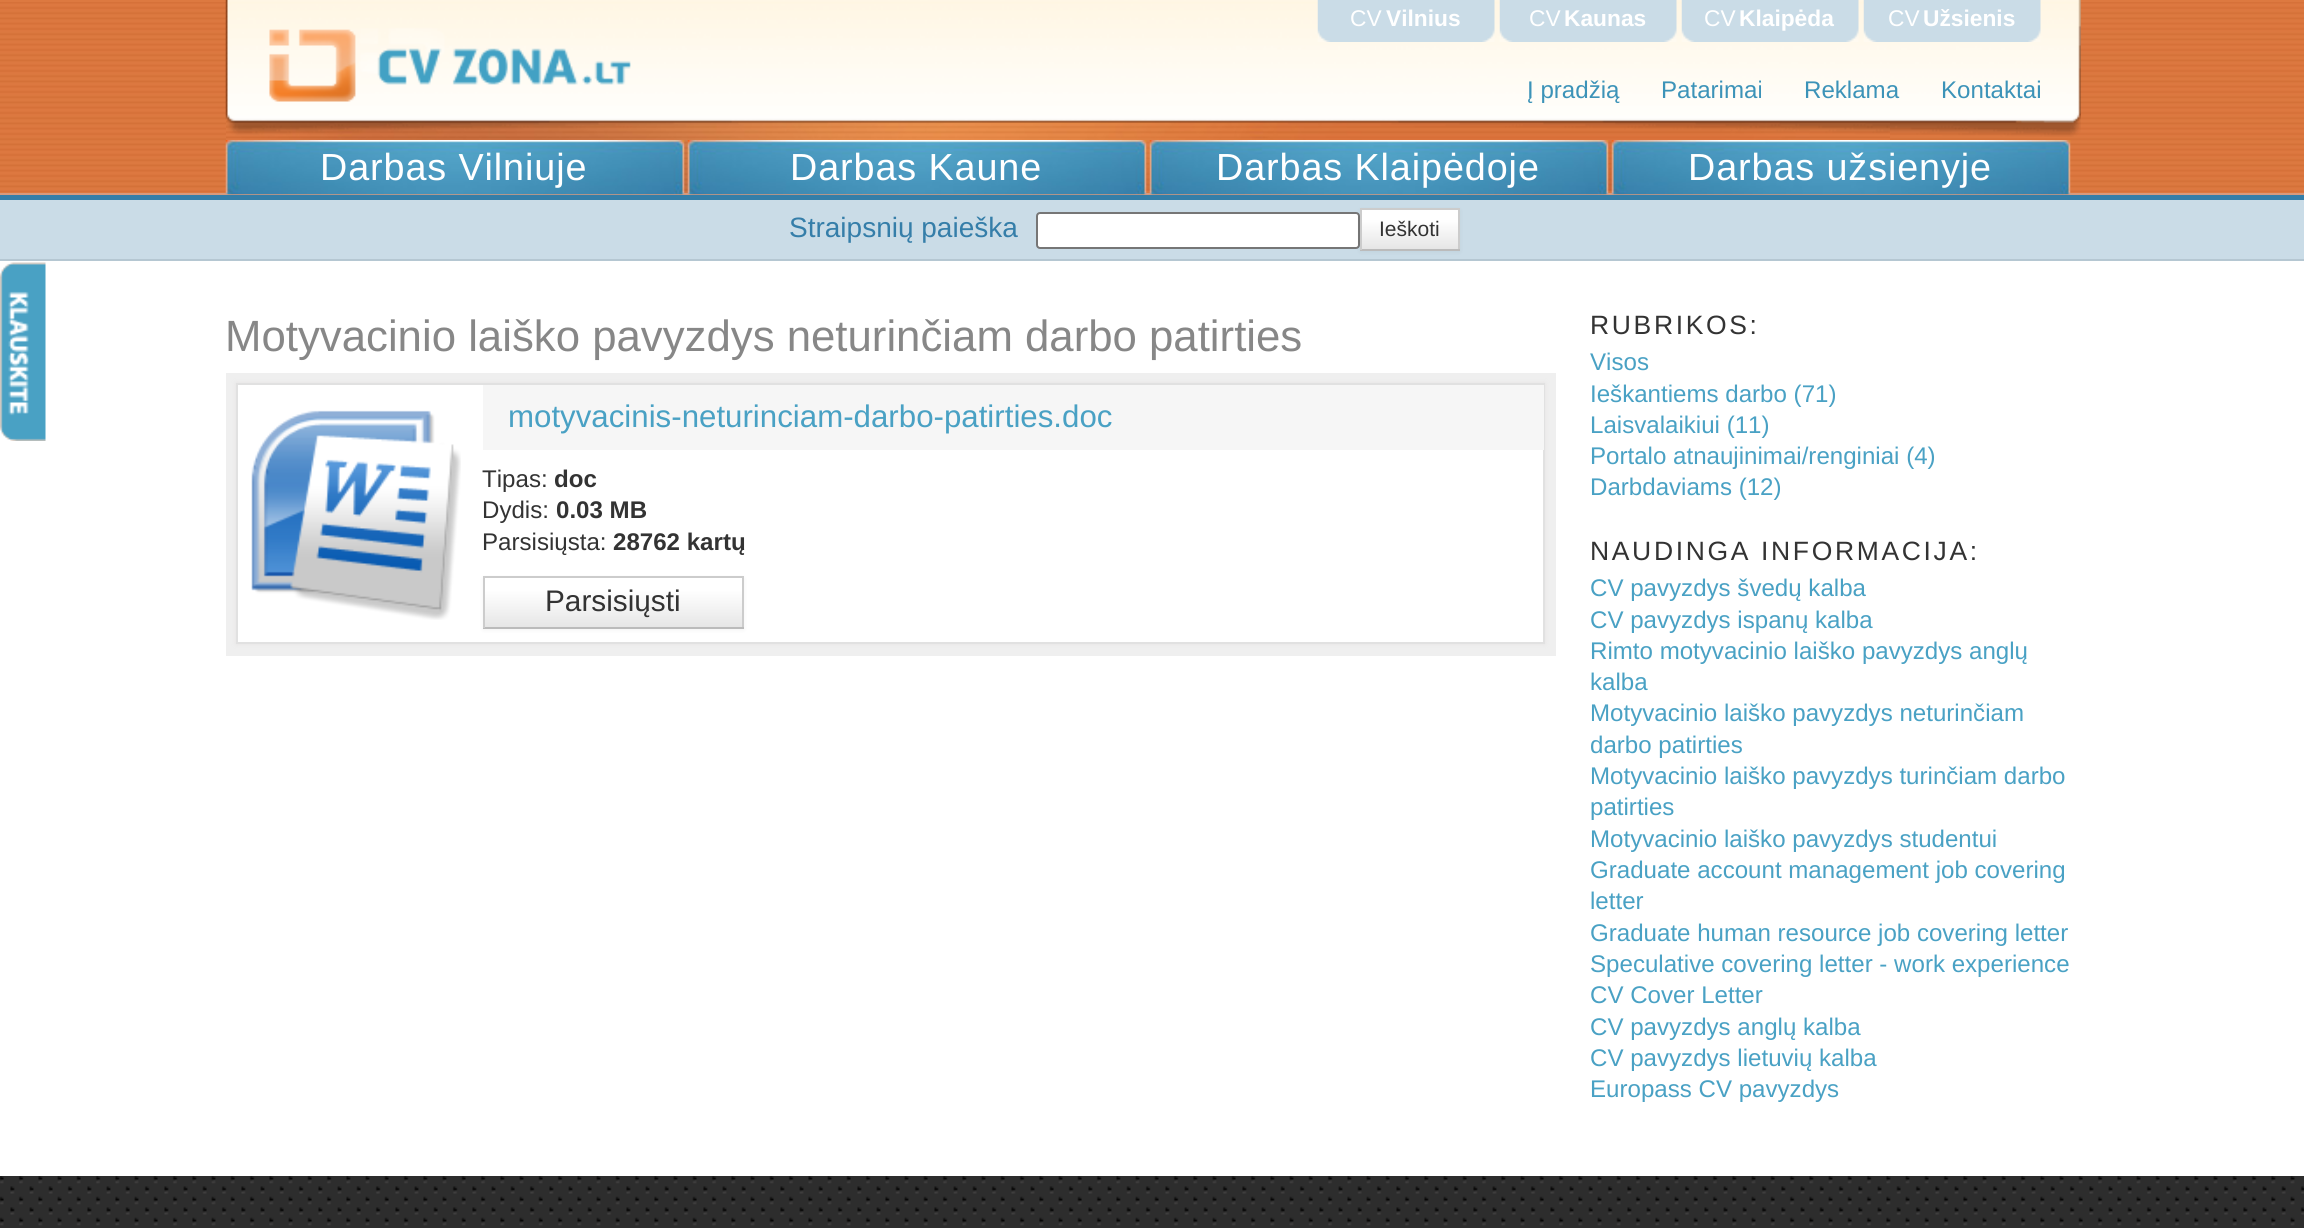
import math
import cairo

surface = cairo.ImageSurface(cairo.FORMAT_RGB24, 2304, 1228)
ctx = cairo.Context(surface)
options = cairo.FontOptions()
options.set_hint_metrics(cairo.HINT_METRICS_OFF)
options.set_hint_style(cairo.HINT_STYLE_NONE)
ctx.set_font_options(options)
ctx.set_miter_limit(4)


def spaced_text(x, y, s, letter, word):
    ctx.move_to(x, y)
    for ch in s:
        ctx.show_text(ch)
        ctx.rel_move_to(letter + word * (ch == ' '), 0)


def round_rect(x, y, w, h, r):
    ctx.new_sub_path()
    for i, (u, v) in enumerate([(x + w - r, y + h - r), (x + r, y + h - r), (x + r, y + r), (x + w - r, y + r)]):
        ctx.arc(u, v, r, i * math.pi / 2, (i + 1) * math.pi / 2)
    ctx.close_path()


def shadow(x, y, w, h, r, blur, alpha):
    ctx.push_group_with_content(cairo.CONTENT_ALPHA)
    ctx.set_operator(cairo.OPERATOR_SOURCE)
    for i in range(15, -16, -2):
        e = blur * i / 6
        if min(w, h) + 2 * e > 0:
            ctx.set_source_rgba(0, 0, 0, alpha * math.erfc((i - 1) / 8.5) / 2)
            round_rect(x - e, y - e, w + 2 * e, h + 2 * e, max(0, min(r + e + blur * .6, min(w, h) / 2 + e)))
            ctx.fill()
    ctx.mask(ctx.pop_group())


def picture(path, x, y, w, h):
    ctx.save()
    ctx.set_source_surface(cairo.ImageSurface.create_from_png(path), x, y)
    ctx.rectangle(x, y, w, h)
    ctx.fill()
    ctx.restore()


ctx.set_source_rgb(1, 1, 1)
ctx.paint()
ctx.set_source_rgb(0.867, 0.475, 0.251)
ctx.rectangle(0, 0, 2304, 193)
ctx.fill()
picture("img1.png", 0, 2, 2304, 190)
picture("img2.png", 226, 0, 1664, 193)
picture("img3.png", 225, 0, 1856, 137)
picture("img4.png", 1317, 0, 178, 42)
ctx.select_font_face("Liberation Sans")
ctx.set_font_size(22.75)
ctx.set_source_rgb(1, 1, 1)
ctx.move_to(1350, 26)
ctx.show_text("CV")
ctx.select_font_face("Liberation Sans", cairo.FONT_SLANT_NORMAL, cairo.FONT_WEIGHT_BOLD)
ctx.move_to(1386, 26)
ctx.show_text("Vilnius")
picture("img5.png", 1499, 0, 178, 42)
ctx.select_font_face("Liberation Sans")
ctx.move_to(1529, 26)
ctx.show_text("CV")
ctx.select_font_face("Liberation Sans", cairo.FONT_SLANT_NORMAL, cairo.FONT_WEIGHT_BOLD)
ctx.move_to(1564, 26)
ctx.show_text("Kaunas")
picture("img6.png", 1681, 0, 178, 42)
ctx.select_font_face("Liberation Sans")
ctx.move_to(1704, 26)
ctx.show_text("CV")
ctx.select_font_face("Liberation Sans", cairo.FONT_SLANT_NORMAL, cairo.FONT_WEIGHT_BOLD)
ctx.move_to(1739, 26)
ctx.show_text("Klaipėda")
picture("img7.png", 1863, 0, 178, 42)
ctx.select_font_face("Liberation Sans")
ctx.move_to(1888, 26)
ctx.show_text("CV")
ctx.select_font_face("Liberation Sans", cairo.FONT_SLANT_NORMAL, cairo.FONT_WEIGHT_BOLD)
ctx.move_to(1923, 26)
ctx.show_text("Užsienis")
picture("img8.png", 269, 29, 362, 73)
ctx.select_font_face("Liberation Sans")
ctx.set_font_size(24.1)
ctx.set_source_rgb(0.235, 0.576, 0.722)
ctx.move_to(1527, 98)
ctx.show_text("Į pradžią")
ctx.move_to(1661, 98)
ctx.show_text("Patarimai")
ctx.move_to(1804, 98)
ctx.show_text("Reklama")
ctx.move_to(1941, 98)
ctx.show_text("Kontaktai")
ctx.set_source_rgb(0.843, 0.604, 0.49)
ctx.rectangle(0, 193, 2304, 2)
ctx.fill()
picture("img9.png", 225, 140, 460, 55)
ctx.set_font_size(37.75)
ctx.set_source_rgb(1, 1, 1)
spaced_text(320, 180, "Darbas Vilniuje", 0.9, 0)
picture("img10.png", 687, 140, 460, 55)
spaced_text(790, 180, "Darbas Kaune", 0.9, 0)
picture("img11.png", 1149, 140, 460, 55)
spaced_text(1216, 180, "Darbas Klaipėdoje", 0.9, 0)
picture("img12.png", 1611, 140, 460, 55)
spaced_text(1688, 180, "Darbas užsienyje", 0.9, 0)
ctx.set_source_rgb(0.204, 0.494, 0.659)
ctx.rectangle(0, 195, 2304, 5)
ctx.fill()
ctx.set_source_rgb(0.792, 0.863, 0.906)
ctx.rectangle(0, 200, 2304, 59)
ctx.fill()
ctx.set_source_rgb(0.71, 0.78, 0.824)
ctx.rectangle(0, 259, 2304, 2)
ctx.fill()
ctx.set_font_size(28)
ctx.set_source_rgb(0.208, 0.494, 0.663)
ctx.move_to(789, 237)
ctx.show_text("Straipsnių paieška")
ctx.set_source_rgb(1, 1, 1)
round_rect(1037, 213, 322, 35, 3)
ctx.fill_preserve()
ctx.set_source_rgb(0.463, 0.463, 0.463)
ctx.stroke()
ctx.set_source_rgb(0, 0, 0)
shadow(1360, 210, 100, 42, 0, 2, 0.05)
gradient = cairo.LinearGradient(1410, 210, 1410, 249)
gradient.add_color_stop_rgba(0, 1, 1, 1, 1)
gradient.add_color_stop_rgba(0.25, 1, 1, 1, 1)
gradient.add_color_stop_rgba(1, 0.902, 0.902, 0.902, 1)
ctx.set_source(gradient)
ctx.rectangle(1362, 210, 96, 39)
ctx.fill()
ctx.set_source_rgb(0.8, 0.8, 0.8)
ctx.rectangle(1360, 208, 100, 2)
ctx.fill()
ctx.rectangle(1458, 208, 2, 42)
ctx.fill()
ctx.set_source_rgb(0.733, 0.733, 0.733)
ctx.rectangle(1360, 249, 100, 2)
ctx.fill()
ctx.set_source_rgb(0.8, 0.8, 0.8)
ctx.rectangle(1360, 208, 2, 42)
ctx.fill()
ctx.set_font_size(21)
ctx.set_source_rgb(0.2, 0.2, 0.2)
ctx.move_to(1379, 236)
ctx.show_text("Ieškoti")
picture("img13.png", 0, 262, 46, 179)
ctx.set_font_size(43.75)
ctx.set_source_rgb(0.529, 0.529, 0.529)
ctx.move_to(225, 351)
ctx.show_text("Motyvacinio laiško pavyzdys neturinčiam darbo patirties")
ctx.set_source_rgb(0.937, 0.937, 0.937)
ctx.rectangle(226, 373, 1330, 283)
ctx.fill()
ctx.set_source_rgb(0.898, 0.89, 0.89)
shadow(236, 383, 1309, 261, 0, 2.5, 1)
ctx.set_source_rgb(1, 1, 1)
ctx.rectangle(237, 384, 1307, 259)
ctx.fill_preserve()
ctx.set_source_rgb(0.882, 0.882, 0.882)
ctx.stroke()
picture("img14.png", 251, 410, 210, 210)
ctx.set_source_rgb(0.961, 0.961, 0.961)
ctx.rectangle(483, 385, 1061, 65)
ctx.fill()
ctx.set_font_size(31.25)
ctx.set_source_rgb(0.286, 0.631, 0.769)
ctx.move_to(508, 427)
ctx.show_text("motyvacinis-neturinciam-darbo-patirties.doc")
ctx.set_font_size(24.1)
ctx.set_source_rgb(0.2, 0.2, 0.2)
ctx.move_to(482, 487)
ctx.show_text("Tipas:")
ctx.select_font_face("Liberation Sans", cairo.FONT_SLANT_NORMAL, cairo.FONT_WEIGHT_BOLD)
ctx.move_to(554, 487)
ctx.show_text("doc")
ctx.select_font_face("Liberation Sans")
ctx.move_to(482, 518)
ctx.show_text("Dydis:")
ctx.select_font_face("Liberation Sans", cairo.FONT_SLANT_NORMAL, cairo.FONT_WEIGHT_BOLD)
ctx.move_to(556, 518)
ctx.show_text("0.03 MB")
ctx.select_font_face("Liberation Sans")
ctx.move_to(482, 550)
ctx.show_text("Parsisiųsta:")
ctx.select_font_face("Liberation Sans", cairo.FONT_SLANT_NORMAL, cairo.FONT_WEIGHT_BOLD)
ctx.move_to(613, 550)
ctx.show_text("28762 kartų")
ctx.set_source_rgb(0, 0, 0)
shadow(483, 578, 261, 52, 0, 2, 0.05)
gradient = cairo.LinearGradient(613, 578, 613, 627)
gradient.add_color_stop_rgba(0, 1, 1, 1, 1)
gradient.add_color_stop_rgba(0.25, 1, 1, 1, 1)
gradient.add_color_stop_rgba(1, 0.902, 0.902, 0.902, 1)
ctx.set_source(gradient)
ctx.rectangle(485, 578, 257, 49)
ctx.fill()
ctx.set_source_rgb(0.8, 0.8, 0.8)
ctx.rectangle(483, 576, 261, 2)
ctx.fill()
ctx.rectangle(742, 576, 2, 52)
ctx.fill()
ctx.set_source_rgb(0.733, 0.733, 0.733)
ctx.rectangle(483, 627, 261, 2)
ctx.fill()
ctx.set_source_rgb(0.8, 0.8, 0.8)
ctx.rectangle(483, 576, 2, 52)
ctx.fill()
ctx.select_font_face("Liberation Sans")
ctx.set_font_size(29.75)
ctx.set_source_rgb(0.2, 0.2, 0.2)
ctx.move_to(545, 611)
ctx.show_text("Parsisiųsti")
ctx.set_font_size(26.5)
spaced_text(1590, 334, "RUBRIKOS:", 2.65, 0)
ctx.set_font_size(24.1)
ctx.set_source_rgb(0.286, 0.631, 0.769)
ctx.move_to(1590, 370)
ctx.show_text("Visos")
ctx.move_to(1590, 402)
ctx.show_text("Ieškantiems darbo (71)")
ctx.move_to(1590, 433)
ctx.show_text("Laisvalaikiui (11)")
ctx.move_to(1590, 464)
ctx.show_text("Portalo atnaujinimai/renginiai (4)")
ctx.move_to(1590, 495)
ctx.show_text("Darbdaviams (12)")
ctx.set_font_size(26.5)
ctx.set_source_rgb(0.2, 0.2, 0.2)
spaced_text(1590, 560, "NAUDINGA INFORMACIJA:", 2.65, 0)
ctx.set_font_size(24.1)
ctx.set_source_rgb(0.286, 0.631, 0.769)
ctx.move_to(1590, 596)
ctx.show_text("CV pavyzdys švedų kalba")
ctx.move_to(1590, 628)
ctx.show_text("CV pavyzdys ispanų kalba")
ctx.move_to(1590, 659)
ctx.show_text("Rimto motyvacinio laiško pavyzdys anglų")
ctx.move_to(1590, 690)
ctx.show_text("kalba")
ctx.move_to(1590, 721)
ctx.show_text("Motyvacinio laiško pavyzdys neturinčiam")
ctx.move_to(1590, 753)
ctx.show_text("darbo patirties")
ctx.move_to(1590, 784)
ctx.show_text("Motyvacinio laiško pavyzdys turinčiam darbo")
ctx.move_to(1590, 815)
ctx.show_text("patirties")
ctx.move_to(1590, 847)
ctx.show_text("Motyvacinio laiško pavyzdys studentui")
ctx.move_to(1590, 878)
ctx.show_text("Graduate account management job covering")
ctx.move_to(1590, 909)
ctx.show_text("letter")
ctx.move_to(1590, 941)
ctx.show_text("Graduate human resource job covering letter")
ctx.move_to(1590, 972)
ctx.show_text("Speculative covering letter - work experience")
ctx.move_to(1590, 1003)
ctx.show_text("CV Cover Letter")
ctx.move_to(1590, 1035)
ctx.show_text("CV pavyzdys anglų kalba")
ctx.move_to(1590, 1066)
ctx.show_text("CV pavyzdys lietuvių kalba")
ctx.move_to(1590, 1097)
ctx.show_text("Europass CV pavyzdys")
picture("img15.png", 0, 1176, 2304, 52)
surface.write_to_png("page.png")
